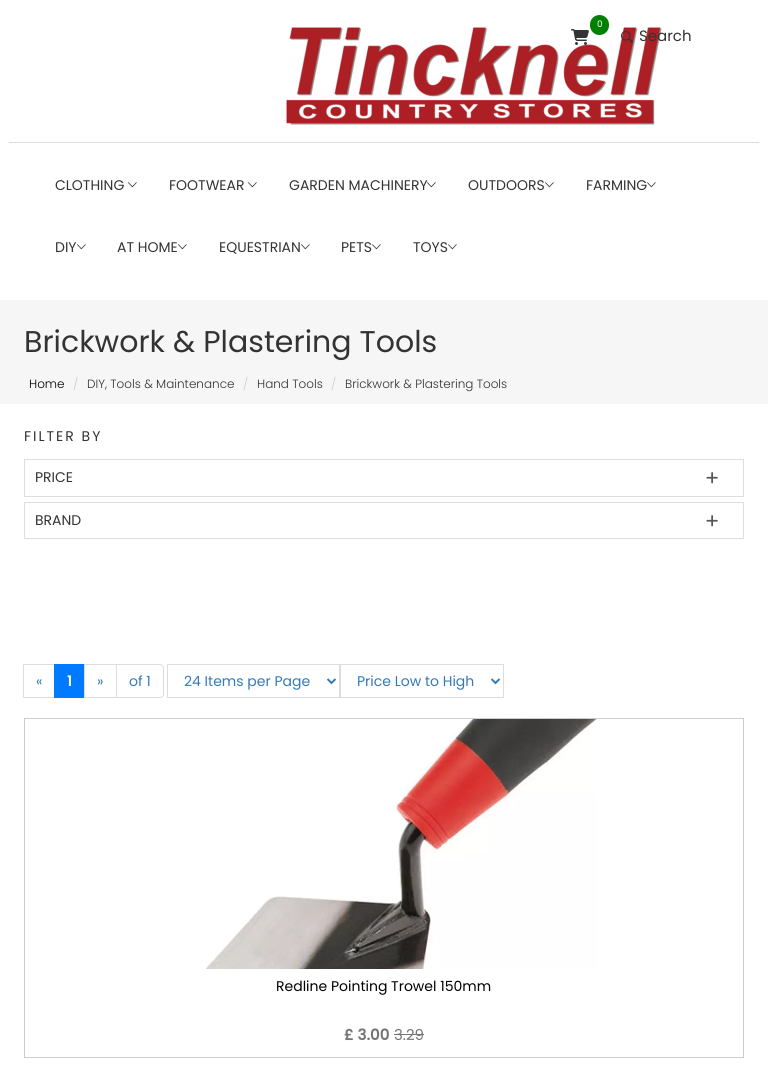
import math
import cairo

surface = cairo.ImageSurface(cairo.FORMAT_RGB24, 768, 1088)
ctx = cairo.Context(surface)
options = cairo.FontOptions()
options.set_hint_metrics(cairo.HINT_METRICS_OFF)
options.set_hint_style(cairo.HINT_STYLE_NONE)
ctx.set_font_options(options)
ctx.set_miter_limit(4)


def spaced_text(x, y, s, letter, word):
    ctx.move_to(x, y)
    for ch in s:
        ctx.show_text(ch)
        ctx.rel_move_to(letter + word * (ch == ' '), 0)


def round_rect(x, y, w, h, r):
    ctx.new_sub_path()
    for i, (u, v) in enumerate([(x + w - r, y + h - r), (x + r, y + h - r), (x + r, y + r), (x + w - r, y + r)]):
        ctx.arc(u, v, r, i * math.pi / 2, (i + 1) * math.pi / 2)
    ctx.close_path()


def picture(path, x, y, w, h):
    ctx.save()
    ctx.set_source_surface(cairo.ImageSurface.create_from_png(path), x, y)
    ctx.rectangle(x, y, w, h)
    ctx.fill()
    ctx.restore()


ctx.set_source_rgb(1, 1, 1)
ctx.paint()
ctx.set_source_rgb(0.871, 0.871, 0.871)
ctx.rectangle(9, 142, 750, 1)
ctx.fill()
picture("img3.png", 286, 27, 376, 98)
ctx.set_source_rgb(0, 0.502, 0)
round_rect(590, 15, 19, 20, 9.5)
ctx.fill()
ctx.select_font_face("Poppins")
ctx.set_font_size(9)
ctx.set_source_rgb(1, 1, 1)
ctx.move_to(597, 27)
ctx.show_text("0")
picture("img1.png", 571, 29, 18, 16)
picture("img2.png", 621, 31, 12, 12)
ctx.set_font_size(15)
ctx.set_source_rgb(0.2, 0.2, 0.2)
ctx.move_to(639, 41)
ctx.show_text("Search")
ctx.set_font_size(14)
ctx.move_to(55, 190)
ctx.show_text("CLOTHING")
picture("img4.png", 128, 182, 9, 6)
ctx.move_to(169, 190)
ctx.show_text("FOOTWEAR")
picture("img4.png", 248, 182, 9, 6)
ctx.move_to(289, 190)
ctx.show_text("GARDEN MACHINERY")
picture("img4.png", 427, 182, 9, 6)
ctx.move_to(468, 190)
ctx.show_text("OUTDOORS")
picture("img4.png", 545, 182, 9, 6)
ctx.move_to(586, 190)
ctx.show_text("FARMING")
picture("img4.png", 647, 182, 9, 6)
ctx.move_to(55, 252)
ctx.show_text("DIY")
picture("img4.png", 77, 244, 9, 6)
ctx.move_to(117, 252)
ctx.show_text("AT HOME")
picture("img4.png", 178, 244, 9, 6)
ctx.move_to(219, 252)
ctx.show_text("EQUESTRIAN")
picture("img4.png", 301, 244, 9, 6)
ctx.move_to(341, 252)
ctx.show_text("PETS")
picture("img4.png", 372, 244, 9, 6)
ctx.move_to(413, 252)
ctx.show_text("TOYS")
picture("img4.png", 448, 244, 9, 6)
ctx.set_source_rgb(0.961, 0.961, 0.961)
ctx.rectangle(0, 300, 768, 104)
ctx.fill()
ctx.set_font_size(30)
ctx.set_source_rgb(0.2, 0.2, 0.2)
ctx.move_to(24, 352)
ctx.show_text("Brickwork & Plastering Tools")
ctx.select_font_face("Poppins Light")
ctx.set_font_size(12)
ctx.set_source_rgb(0, 0, 0)
ctx.move_to(29, 388)
ctx.show_text("Home")
ctx.set_source_rgb(0.8, 0.8, 0.8)
ctx.move_to(73, 388)
ctx.show_text("/")
ctx.set_source_rgb(0.2, 0.2, 0.2)
ctx.move_to(87, 388)
ctx.show_text("DIY, Tools & Maintenance")
ctx.set_source_rgb(0.8, 0.8, 0.8)
ctx.move_to(243, 388)
ctx.show_text("/")
ctx.set_source_rgb(0.2, 0.2, 0.2)
ctx.move_to(257, 388)
ctx.show_text("Hand Tools")
ctx.set_source_rgb(0.8, 0.8, 0.8)
ctx.move_to(331, 388)
ctx.show_text("/")
ctx.set_source_rgb(0.2, 0.2, 0.2)
ctx.move_to(345, 388)
ctx.show_text("Brickwork & Plastering Tools")
ctx.select_font_face("Poppins")
ctx.set_font_size(14)
spaced_text(24, 441, "FILTER BY", 2, 0)
ctx.rectangle(24.5, 459.5, 719, 37)
ctx.set_source_rgb(0.867, 0.867, 0.867)
ctx.set_line_width(1)
ctx.stroke()
ctx.set_source_rgb(0.2, 0.2, 0.2)
ctx.move_to(35, 482)
ctx.show_text("PRICE")
picture("img5.png", 706, 472, 12, 12)
ctx.rectangle(24.5, 502.5, 719, 36)
ctx.set_source_rgb(0.867, 0.867, 0.867)
ctx.stroke()
ctx.set_source_rgb(0.2, 0.2, 0.2)
ctx.move_to(35, 525)
ctx.show_text("BRAND")
picture("img5.png", 706, 515, 12, 12)
ctx.rectangle(23.5, 664.5, 31, 33)
ctx.set_source_rgb(0.867, 0.867, 0.867)
ctx.stroke()
ctx.set_source_rgb(0.2, 0.478, 0.718)
ctx.move_to(36, 686)
ctx.show_text("«")
ctx.set_source_rgb(0, 0.482, 1)
ctx.rectangle(54, 664, 30, 34)
ctx.fill()
ctx.select_font_face("Poppins", cairo.FONT_SLANT_NORMAL, cairo.FONT_WEIGHT_BOLD)
ctx.set_source_rgb(1, 1, 1)
ctx.move_to(67, 686)
ctx.show_text("1")
ctx.rectangle(84.5, 664.5, 32, 33)
ctx.set_source_rgb(0.867, 0.867, 0.867)
ctx.stroke()
ctx.select_font_face("Poppins")
ctx.set_source_rgb(0.2, 0.478, 0.718)
ctx.move_to(97, 686)
ctx.show_text("»")
ctx.set_source_rgb(1, 1, 1)
ctx.new_path()
ctx.move_to(116.5, 664.5)
ctx.line_to(160, 664.5)
ctx.curve_to(162, 664.5, 163.5, 666, 163.5, 668)
ctx.line_to(163.5, 694)
ctx.curve_to(163.5, 696, 162, 697.5, 160, 697.5)
ctx.line_to(116.5, 697.5)
ctx.close_path()
ctx.fill_preserve()
ctx.set_source_rgb(0.867, 0.867, 0.867)
ctx.stroke()
ctx.set_source_rgb(0.2, 0.478, 0.718)
ctx.move_to(129, 686)
ctx.show_text("of 1")
ctx.rectangle(167.5, 664.5, 172, 33)
ctx.set_source_rgb(0.867, 0.867, 0.867)
ctx.stroke()
ctx.new_path()
ctx.move_to(327.5, 679)
ctx.line_to(331.5, 683)
ctx.line_to(335.5, 679)
ctx.set_source_rgb(0.2, 0.478, 0.718)
ctx.set_line_width(2)
ctx.stroke()
ctx.move_to(184, 686)
ctx.show_text("24 Items per Page")
ctx.rectangle(340.5, 664.5, 163, 33)
ctx.set_source_rgb(0.867, 0.867, 0.867)
ctx.set_line_width(1)
ctx.stroke()
ctx.new_path()
ctx.move_to(491.5, 679)
ctx.line_to(495.5, 683)
ctx.line_to(499.5, 679)
ctx.set_source_rgb(0.2, 0.478, 0.718)
ctx.set_line_width(2)
ctx.stroke()
ctx.move_to(357, 686)
ctx.show_text("Price Low to High")
ctx.rectangle(24.5, 718.5, 719, 339)
ctx.set_source_rgb(0.8, 0.8, 0.8)
ctx.set_line_width(1)
ctx.stroke()
picture("img6.png", 205, 719, 392, 250)
ctx.set_source_rgb(0, 0, 0)
ctx.move_to(276, 991)
ctx.show_text("Redline Pointing Trowel 150mm")
ctx.select_font_face("Poppins", cairo.FONT_SLANT_NORMAL, cairo.FONT_WEIGHT_BOLD)
ctx.set_font_size(15)
ctx.set_source_rgb(0.459, 0.459, 0.459)
ctx.move_to(344, 1040)
ctx.show_text("£ 3.00")
ctx.select_font_face("Poppins")
ctx.move_to(394, 1040)
ctx.show_text("3.29")
ctx.rectangle(394, 1034, 30, 1)
ctx.fill()
surface.write_to_png("page.png")
